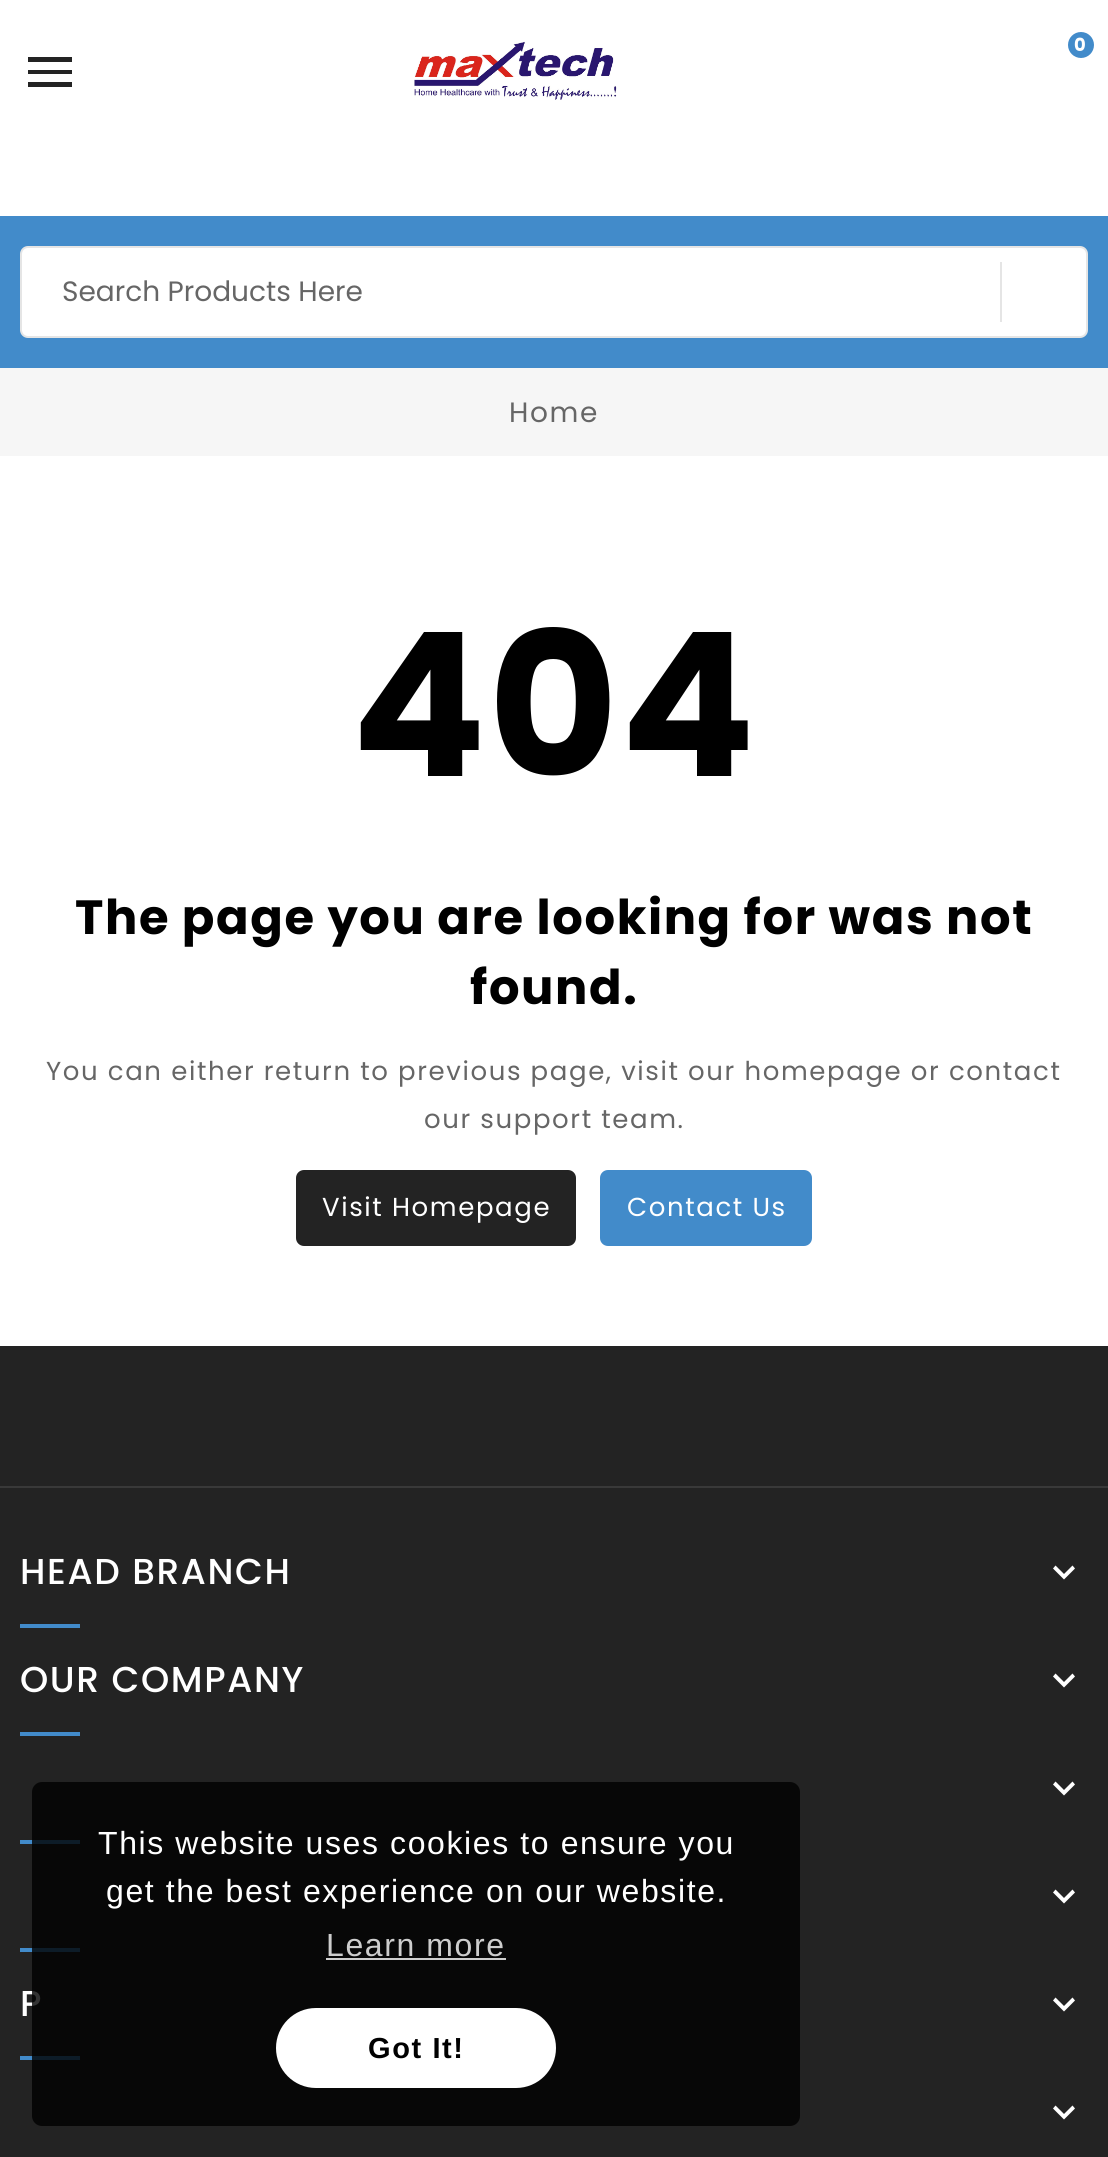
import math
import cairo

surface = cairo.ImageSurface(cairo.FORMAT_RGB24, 1108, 2157)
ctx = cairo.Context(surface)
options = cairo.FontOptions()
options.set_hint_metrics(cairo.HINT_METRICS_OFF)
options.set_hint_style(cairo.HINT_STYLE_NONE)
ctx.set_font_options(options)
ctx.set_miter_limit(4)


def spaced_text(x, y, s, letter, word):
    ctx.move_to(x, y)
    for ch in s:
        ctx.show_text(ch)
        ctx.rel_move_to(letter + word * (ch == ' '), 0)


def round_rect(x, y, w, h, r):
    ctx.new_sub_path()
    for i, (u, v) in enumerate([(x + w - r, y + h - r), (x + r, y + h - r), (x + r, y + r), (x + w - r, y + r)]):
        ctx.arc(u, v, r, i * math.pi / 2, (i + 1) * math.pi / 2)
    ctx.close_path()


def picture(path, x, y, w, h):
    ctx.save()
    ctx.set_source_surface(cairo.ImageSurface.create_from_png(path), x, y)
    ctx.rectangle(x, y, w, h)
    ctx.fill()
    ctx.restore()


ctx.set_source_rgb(1, 1, 1)
ctx.paint()
ctx.set_source_rgb(0.137, 0.137, 0.137)
ctx.new_path()
ctx.move_to(28, 87)
ctx.line_to(72, 87)
ctx.line_to(72, 82)
ctx.line_to(28, 82)
ctx.close_path()
ctx.move_to(28, 74)
ctx.line_to(72, 74)
ctx.line_to(72, 70)
ctx.line_to(28, 70)
ctx.close_path()
ctx.move_to(28, 57)
ctx.line_to(28, 62)
ctx.line_to(72, 62)
ctx.line_to(72, 57)
ctx.close_path()
ctx.fill()
picture("img1.png", 414, 41, 203, 59)
ctx.set_source_rgb(0.259, 0.545, 0.792)
ctx.arc(1081, 45, 13, 0, 2 * math.pi)
ctx.fill()
ctx.select_font_face("Poppins", cairo.FONT_SLANT_NORMAL, cairo.FONT_WEIGHT_BOLD)
ctx.set_font_size(18)
ctx.set_source_rgb(1, 1, 1)
spaced_text(1074, 51, "0", 1.6, 0)
ctx.set_source_rgb(0.259, 0.545, 0.792)
ctx.rectangle(0, 216, 1108, 152)
ctx.fill()
ctx.set_source_rgb(1, 1, 1)
round_rect(21, 247, 1066, 90, 7)
ctx.fill_preserve()
ctx.set_source_rgb(0.898, 0.898, 0.898)
ctx.stroke()
ctx.select_font_face("Poppins")
ctx.set_font_size(28)
ctx.set_source_rgb(0.4, 0.4, 0.4)
ctx.move_to(62, 301)
ctx.show_text("Search Products Here")
ctx.set_source_rgb(0.898, 0.898, 0.898)
ctx.rectangle(1000, 262, 2, 60)
ctx.fill()
ctx.set_source_rgb(0.961, 0.961, 0.961)
ctx.rectangle(0, 368, 1108, 88)
ctx.fill()
ctx.set_source_rgb(0.4, 0.4, 0.4)
spaced_text(509, 422, "Home", 1.6, 0)
ctx.select_font_face("Poppins", cairo.FONT_SLANT_NORMAL, cairo.FONT_WEIGHT_BOLD)
ctx.set_font_size(200)
ctx.set_source_rgb(0, 0, 0)
spaced_text(351, 776, "404", 1.6, 0)
ctx.set_font_size(48)
spaced_text(75, 934, "The page you are looking for was not", 1.6, 0)
spaced_text(470, 1004, "found.", 1.6, 0)
ctx.select_font_face("Poppins")
ctx.set_font_size(26)
ctx.set_source_rgb(0.4, 0.4, 0.4)
spaced_text(46, 1080, "You can either return to previous page, visit our homepage or contact", 1.6, 0)
spaced_text(424, 1128, "our support team.", 1.6, 0)
ctx.set_source_rgb(0.137, 0.137, 0.137)
round_rect(297, 1171, 278, 74, 7)
ctx.fill_preserve()
ctx.stroke()
ctx.set_source_rgb(1, 1, 1)
spaced_text(322, 1216, "Visit Homepage", 1.6, 0)
ctx.set_source_rgb(0.259, 0.545, 0.792)
round_rect(601, 1171, 210, 74, 7)
ctx.fill_preserve()
ctx.stroke()
ctx.set_source_rgb(1, 1, 1)
spaced_text(627, 1216, "Contact Us", 1.6, 0)
ctx.set_source_rgb(0.137, 0.137, 0.137)
ctx.rectangle(0, 1346, 1108, 811)
ctx.fill()
ctx.set_source_rgb(0.224, 0.224, 0.224)
ctx.rectangle(0, 1486, 1108, 2)
ctx.fill()
ctx.select_font_face("Poppins Medium")
ctx.set_font_size(36)
ctx.set_source_rgb(1, 1, 1)
spaced_text(20, 1584, "HEAD BRANCH", 1.6, 0)
ctx.new_path()
ctx.move_to(1055.5, 1565.5)
ctx.line_to(1064, 1574)
ctx.line_to(1072.5, 1565.5)
ctx.line_to(1075, 1568.5)
ctx.line_to(1064, 1579.5)
ctx.line_to(1053, 1568.5)
ctx.close_path()
ctx.fill()
ctx.set_source_rgb(0.259, 0.545, 0.792)
ctx.rectangle(20, 1624, 60, 4)
ctx.fill()
ctx.set_source_rgb(1, 1, 1)
spaced_text(20, 1692, "OUR COMPANY", 1.6, 0)
ctx.new_path()
ctx.move_to(1055.5, 1673.5)
ctx.line_to(1064, 1682)
ctx.line_to(1072.5, 1673.5)
ctx.line_to(1075, 1676.5)
ctx.line_to(1064, 1687.5)
ctx.line_to(1053, 1676.5)
ctx.close_path()
ctx.fill()
ctx.set_source_rgb(0.259, 0.545, 0.792)
ctx.rectangle(20, 1732, 60, 4)
ctx.fill()
ctx.set_source_rgb(1, 1, 1)
ctx.new_path()
ctx.move_to(1055.5, 1781.5)
ctx.line_to(1064, 1790)
ctx.line_to(1072.5, 1781.5)
ctx.line_to(1075, 1784.5)
ctx.line_to(1064, 1795.5)
ctx.line_to(1053, 1784.5)
ctx.close_path()
ctx.fill()
ctx.set_source_rgb(0.259, 0.545, 0.792)
ctx.rectangle(20, 1840, 60, 4)
ctx.fill()
ctx.set_source_rgb(1, 1, 1)
ctx.new_path()
ctx.move_to(1055.5, 1889.5)
ctx.line_to(1064, 1898)
ctx.line_to(1072.5, 1889.5)
ctx.line_to(1075, 1892.5)
ctx.line_to(1064, 1903.5)
ctx.line_to(1053, 1892.5)
ctx.close_path()
ctx.fill()
ctx.set_source_rgb(0.259, 0.545, 0.792)
ctx.rectangle(20, 1948, 60, 4)
ctx.fill()
ctx.set_source_rgb(1, 1, 1)
spaced_text(20, 2016, "P", 1.6, 0)
ctx.new_path()
ctx.move_to(1055.5, 1997.5)
ctx.line_to(1064, 2006)
ctx.line_to(1072.5, 1997.5)
ctx.line_to(1075, 2000.5)
ctx.line_to(1064, 2011.5)
ctx.line_to(1053, 2000.5)
ctx.close_path()
ctx.fill()
ctx.set_source_rgb(0.259, 0.545, 0.792)
ctx.rectangle(20, 2056, 60, 4)
ctx.fill()
ctx.set_source_rgb(1, 1, 1)
ctx.new_path()
ctx.move_to(1055.5, 2105.5)
ctx.line_to(1064, 2114)
ctx.line_to(1072.5, 2105.5)
ctx.line_to(1075, 2108.5)
ctx.line_to(1064, 2119.5)
ctx.line_to(1053, 2108.5)
ctx.close_path()
ctx.fill()
ctx.set_source_rgba(0, 0, 0, 0.8)
round_rect(32, 1782, 768, 344, 10)
ctx.fill()
ctx.select_font_face("Liberation Sans")
ctx.set_font_size(32)
ctx.set_source_rgb(1, 1, 1)
spaced_text(98, 1854, "This website uses cookies to ensure you", 1.6, 0)
spaced_text(106, 1902, "get the best experience on our website.", 1.6, 0)
ctx.set_source_rgb(0.804, 0.804, 0.804)
spaced_text(326, 1956, "Learn more", 1.6, 0)
ctx.rectangle(326, 1958, 180, 2)
ctx.fill()
ctx.set_source_rgb(1, 1, 1)
round_rect(276, 2008, 280, 80, 40)
ctx.fill()
ctx.select_font_face("Liberation Sans", cairo.FONT_SLANT_NORMAL, cairo.FONT_WEIGHT_BOLD)
ctx.set_font_size(29)
ctx.set_source_rgb(0, 0, 0)
spaced_text(368, 2058, "Got It!", 1.6, 0)
surface.write_to_png("page.png")
